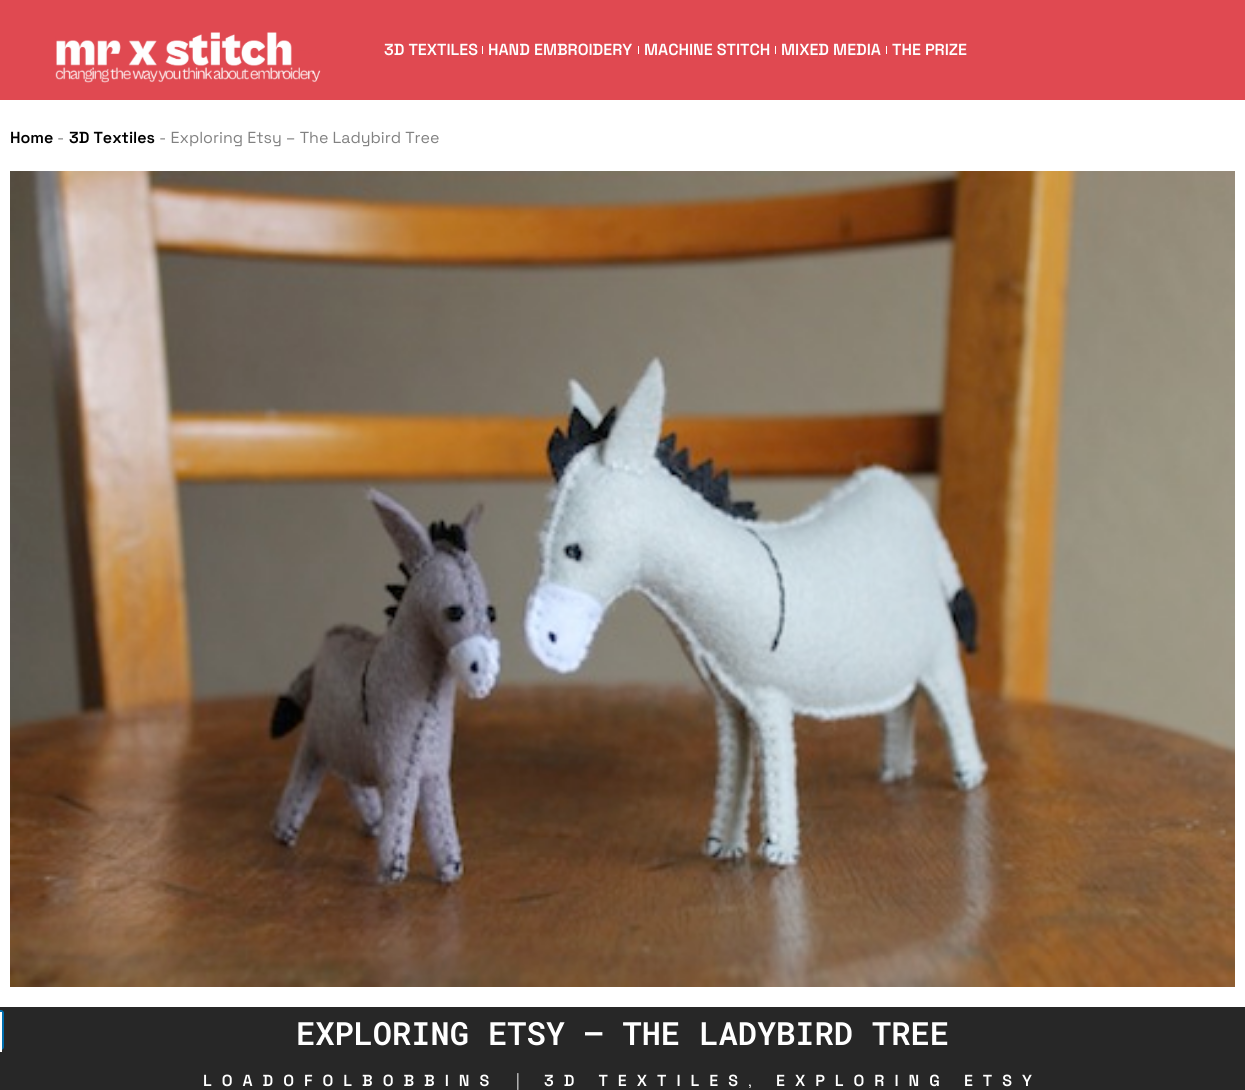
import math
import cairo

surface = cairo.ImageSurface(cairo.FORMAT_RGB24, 1245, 1090)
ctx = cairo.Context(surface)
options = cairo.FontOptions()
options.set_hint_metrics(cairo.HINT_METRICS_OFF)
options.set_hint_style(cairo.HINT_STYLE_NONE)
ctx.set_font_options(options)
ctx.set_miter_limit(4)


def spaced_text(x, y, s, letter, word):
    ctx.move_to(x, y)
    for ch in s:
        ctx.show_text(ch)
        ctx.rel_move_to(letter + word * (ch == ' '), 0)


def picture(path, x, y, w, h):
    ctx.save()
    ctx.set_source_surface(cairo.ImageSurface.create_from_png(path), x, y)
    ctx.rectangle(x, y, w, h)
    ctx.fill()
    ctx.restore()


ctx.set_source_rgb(1, 1, 1)
ctx.paint()
ctx.set_source_rgb(0.878, 0.286, 0.318)
ctx.rectangle(0, 0, 1245, 100)
ctx.fill()
picture("img1.png", 55, 32, 266, 51)
ctx.select_font_face("Space Grotesk SemiBold")
ctx.set_font_size(16)
ctx.set_source_rgb(1, 1, 1)
ctx.move_to(384, 55)
ctx.show_text("3D TEXTILES")
ctx.rectangle(482, 46, 1, 8)
ctx.fill()
ctx.move_to(488, 55)
ctx.show_text("HAND EMBROIDERY")
ctx.rectangle(638, 46, 1, 8)
ctx.fill()
ctx.move_to(644, 55)
ctx.show_text("MACHINE STITCH")
ctx.rectangle(775, 46, 1, 8)
ctx.fill()
ctx.move_to(781, 55)
ctx.show_text("MIXED MEDIA")
ctx.rectangle(886, 46, 1, 8)
ctx.fill()
ctx.move_to(892, 55)
ctx.show_text("THE PRIZE")
ctx.set_source_rgb(0.153, 0.153, 0.153)
ctx.rectangle(0, 1007, 1245, 83)
ctx.fill()
ctx.set_source_rgb(0, 0.451, 0.718)
ctx.new_path()
ctx.move_to(-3, 1010)
ctx.line_to(1, 1010)
ctx.curve_to(2.5, 1010, 4, 1011.5, 4, 1013)
ctx.line_to(4, 1047)
ctx.curve_to(4, 1048.5, 2.5, 1050, 1, 1050)
ctx.line_to(-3, 1050)
ctx.close_path()
ctx.fill()
ctx.rectangle(-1, 1011, 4, 38)
ctx.set_source_rgba(0, 0, 0, 0.05)
ctx.stroke()
ctx.set_source_rgb(1, 1, 1)
ctx.rectangle(0, 1012, 2, 40)
ctx.fill()
ctx.set_source_rgb(0, 0, 0)
ctx.move_to(10, 143)
ctx.show_text("Home")
ctx.select_font_face("Space Grotesk Light")
ctx.set_source_rgb(0.506, 0.506, 0.506)
ctx.move_to(57, 143)
ctx.show_text("-")
ctx.select_font_face("Space Grotesk SemiBold")
ctx.set_source_rgb(0, 0, 0)
ctx.move_to(69, 143)
ctx.show_text("3D Textiles")
ctx.select_font_face("Space Grotesk Light")
ctx.set_source_rgb(0.506, 0.506, 0.506)
ctx.move_to(159, 143)
ctx.show_text("- Exploring Etsy – The Ladybird Tree")
picture("img2.png", 10, 171, 1225, 816)
ctx.select_font_face("Roboto Mono SemiBold")
ctx.set_font_size(32)
ctx.set_source_rgb(1, 1, 1)
ctx.move_to(296, 1045)
ctx.show_text("EXPLORING ETSY – THE LADYBIRD TREE")
ctx.select_font_face("Space Grotesk SemiBold")
ctx.set_font_size(16)
spaced_text(203, 1086, "LOADOFOLBOBBINS", 10, 0)
ctx.select_font_face("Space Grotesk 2 Light")
spaced_text(516, 1086, "|", 10, 0)
ctx.select_font_face("Space Grotesk SemiBold")
spaced_text(544, 1086, "3D TEXTILES", 10, 0)
ctx.select_font_face("Space Grotesk 2 Light")
spaced_text(748, 1086, ",", 10, 0)
ctx.select_font_face("Space Grotesk SemiBold")
spaced_text(776, 1086, "EXPLORING ETSY", 10, 0)
surface.write_to_png("page.png")
